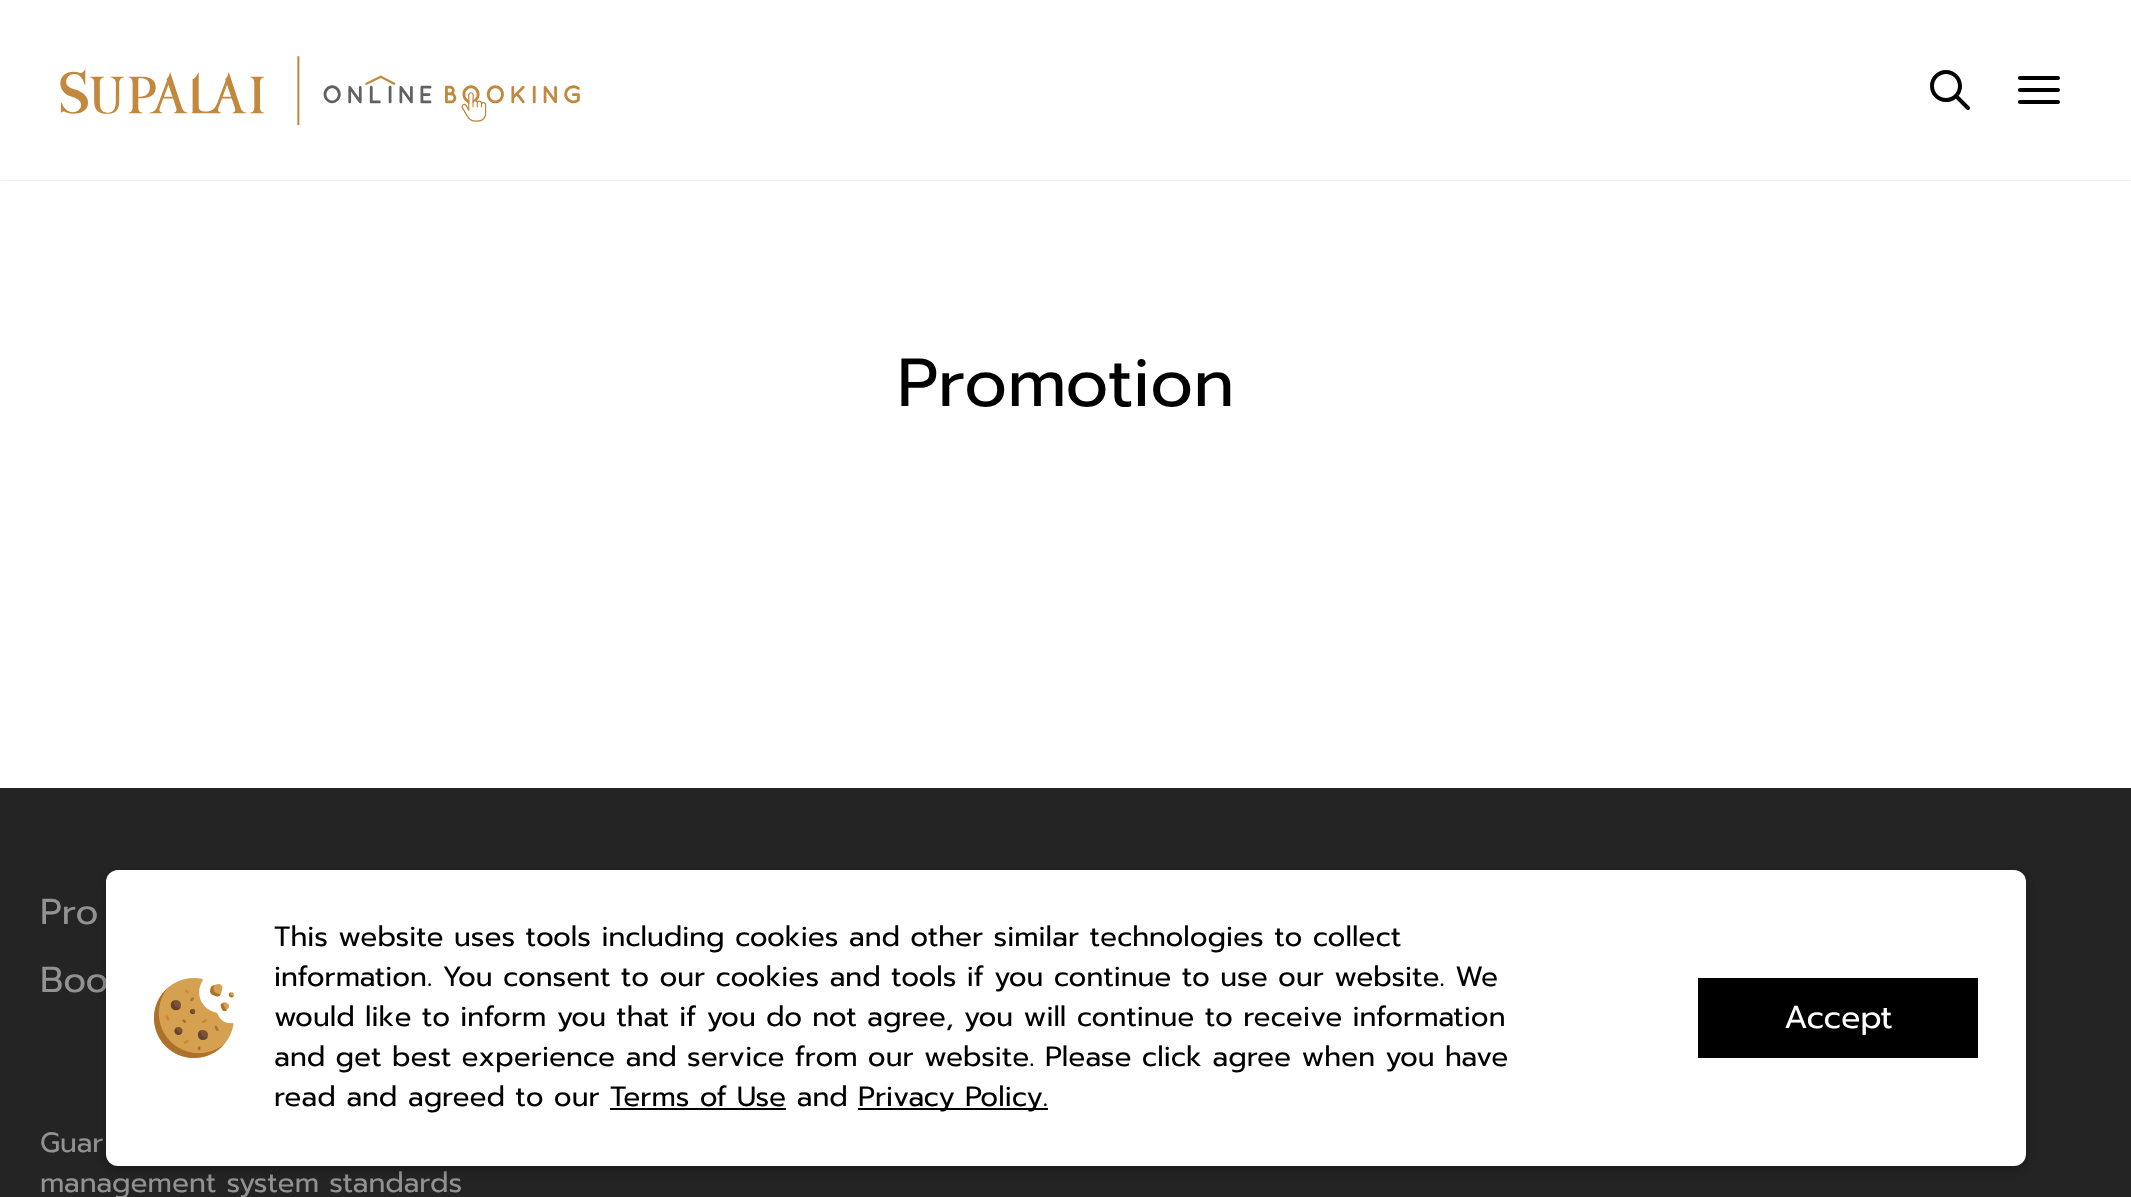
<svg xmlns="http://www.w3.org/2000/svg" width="2131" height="1197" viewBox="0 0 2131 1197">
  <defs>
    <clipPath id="clip1"><rect x="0" y="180" width="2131" height="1"/></clipPath>
    <filter id="blur1" x="-50%" y="-200%" width="200%" height="500%"><feGaussianBlur stdDeviation="1"/></filter>
    <filter id="blur2" x="-50%" y="-200%" width="200%" height="500%"><feGaussianBlur stdDeviation="6"/></filter>
  </defs>
  <rect width="100%" height="100%" fill="#ffffff"/>
  <g clip-path="url(#clip1)">
    <rect x="0" y="0" width="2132" height="180" fill="#000000" fill-opacity="0.2" filter="url(#blur1)"/>
  </g>
  <image x="60" y="56" width="520" height="70" href="img1.png"/>
  <image x="1930" y="70" width="40" height="40" href="img2.png"/>
  <image x="2018" y="76" width="42" height="28" href="img3.png"/>
  <text x="897" y="406" font-family="Prompt" font-size="68" fill="#000000">Promotion</text>
  <rect x="0" y="788" width="2131" height="409" fill="#242424"/>
  <text x="40" y="924" font-family="Prompt" font-size="36" fill="#929292">Pro</text>
  <text x="40" y="992" font-family="Prompt" font-size="36" fill="#929292">Boo</text>
  <text x="40" y="1152" font-family="Prompt" font-size="28" fill="#929292">Guar</text>
  <text x="40" y="1192" font-family="Prompt" font-size="28" fill="#929292">management system standards</text>
  <rect x="106" y="874" width="1920" height="296" rx="12" fill="#000000" fill-opacity="0.3" filter="url(#blur2)"/>
  <rect x="106" y="870" width="1920" height="296" rx="12" fill="#ffffff"/>
  <image x="154" y="978" width="80" height="80" href="img4.png"/>
  <text x="274" y="946" font-family="Prompt" font-size="28" fill="#000000">This website uses tools including cookies and other similar technologies to collect</text>
  <text x="274" y="986" font-family="Prompt" font-size="28" fill="#000000">information. You consent to our cookies and tools if you continue to use our website. We</text>
  <text x="274" y="1026" font-family="Prompt" font-size="28" fill="#000000">would like to inform you that if you do not agree, you will continue to receive information</text>
  <text x="274" y="1066" font-family="Prompt" font-size="28" fill="#000000">and get best experience and service from our website. Please click agree when you have</text>
  <text x="274" y="1106" font-family="Prompt" font-size="28" fill="#000000">read and agreed to our Terms of Use and</text>
  <rect x="858" y="1108" width="190" height="2" fill="#000000"/>
  <text x="858" y="1106" font-family="Prompt" font-size="28" fill="#000000">Privacy Policy.</text>
  <rect x="610" y="1108" width="176" height="2" fill="#000000"/>
  <rect x="1698" y="978" width="280" height="80" fill="#000000"/>
  <text x="1784" y="1028" font-family="Prompt" font-size="32" fill="#ffffff">Accept</text>
</svg>
